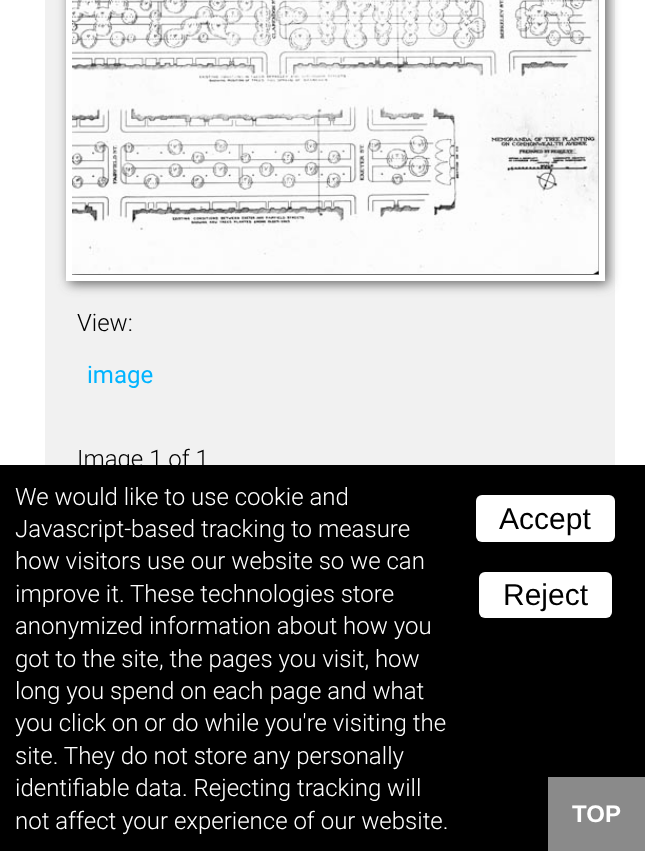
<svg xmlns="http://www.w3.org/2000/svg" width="645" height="851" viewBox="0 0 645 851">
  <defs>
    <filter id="blur1" x="-50%" y="-200%" width="200%" height="500%"><feGaussianBlur stdDeviation="6"/></filter>
  </defs>
  <rect width="100%" height="100%" fill="#ffffff"/>
  <rect x="45" y="0" width="570" height="465" fill="#f1f1f1"/>
  <rect x="69" y="-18" width="539" height="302" fill="#666666" filter="url(#blur1)"/>
  <rect x="69" y="-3" width="533" height="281" fill="none" stroke="#ffffff" stroke-width="6"/>
  <image x="72" y="0" width="527" height="274" href="img1.png"/>
  <text x="77" y="331" font-family="Roboto" font-size="24" font-weight="300" fill="#000000">View:</text>
  <text x="87" y="383" font-family="Roboto" font-size="24" fill="#00b4ff">image</text>
  <text x="77" y="467" font-family="Roboto" font-size="24" font-weight="300" fill="#000000">Image 1 of 1</text>
  <rect x="0" y="465" width="645" height="386" fill="#000000"/>
  <text x="15" y="505" font-family="Roboto" font-size="24" font-weight="300" fill="#ffffff">We would like to use cookie and</text>
  <text x="15" y="537" font-family="Roboto" font-size="24" font-weight="300" fill="#ffffff">Javascript-based tracking to measure</text>
  <text x="15" y="569" font-family="Roboto" font-size="24" font-weight="300" fill="#ffffff">how visitors use our website so we can</text>
  <text x="15" y="602" font-family="Roboto" font-size="24" font-weight="300" fill="#ffffff">improve it. These technologies store</text>
  <text x="15" y="634" font-family="Roboto" font-size="24" font-weight="300" fill="#ffffff">anonymized information about how you</text>
  <text x="15" y="667" font-family="Roboto" font-size="24" font-weight="300" fill="#ffffff">got to the site, the pages you visit, how</text>
  <text x="15" y="699" font-family="Roboto" font-size="24" font-weight="300" fill="#ffffff">long you spend on each page and what</text>
  <text x="15" y="731" font-family="Roboto" font-size="24" font-weight="300" fill="#ffffff">you click on or do while you're visiting the</text>
  <text x="15" y="764" font-family="Roboto" font-size="24" font-weight="300" fill="#ffffff">site. They do not store any personally</text>
  <text x="15" y="796" font-family="Roboto" font-size="24" font-weight="300" fill="#ffffff">identifiable data. Rejecting tracking will</text>
  <text x="15" y="829" font-family="Roboto" font-size="24" font-weight="300" fill="#ffffff">not affect your experience of our website.</text>
  <rect x="476" y="495" width="139" height="47" rx="6" fill="#ffffff"/>
  <text x="499" y="529" font-family="Liberation Sans" font-size="30" fill="#000000">Accept</text>
  <rect x="479" y="572" width="133" height="46" rx="6" fill="#ffffff"/>
  <text x="503" y="605" font-family="Liberation Sans" font-size="30" fill="#000000">Reject</text>
  <rect x="548" y="777" width="97" height="74" fill="#8a8a8a"/>
  <text x="572" y="822" font-family="Liberation Sans" font-size="24" font-weight="bold" fill="#ffffff">TOP</text>
</svg>
